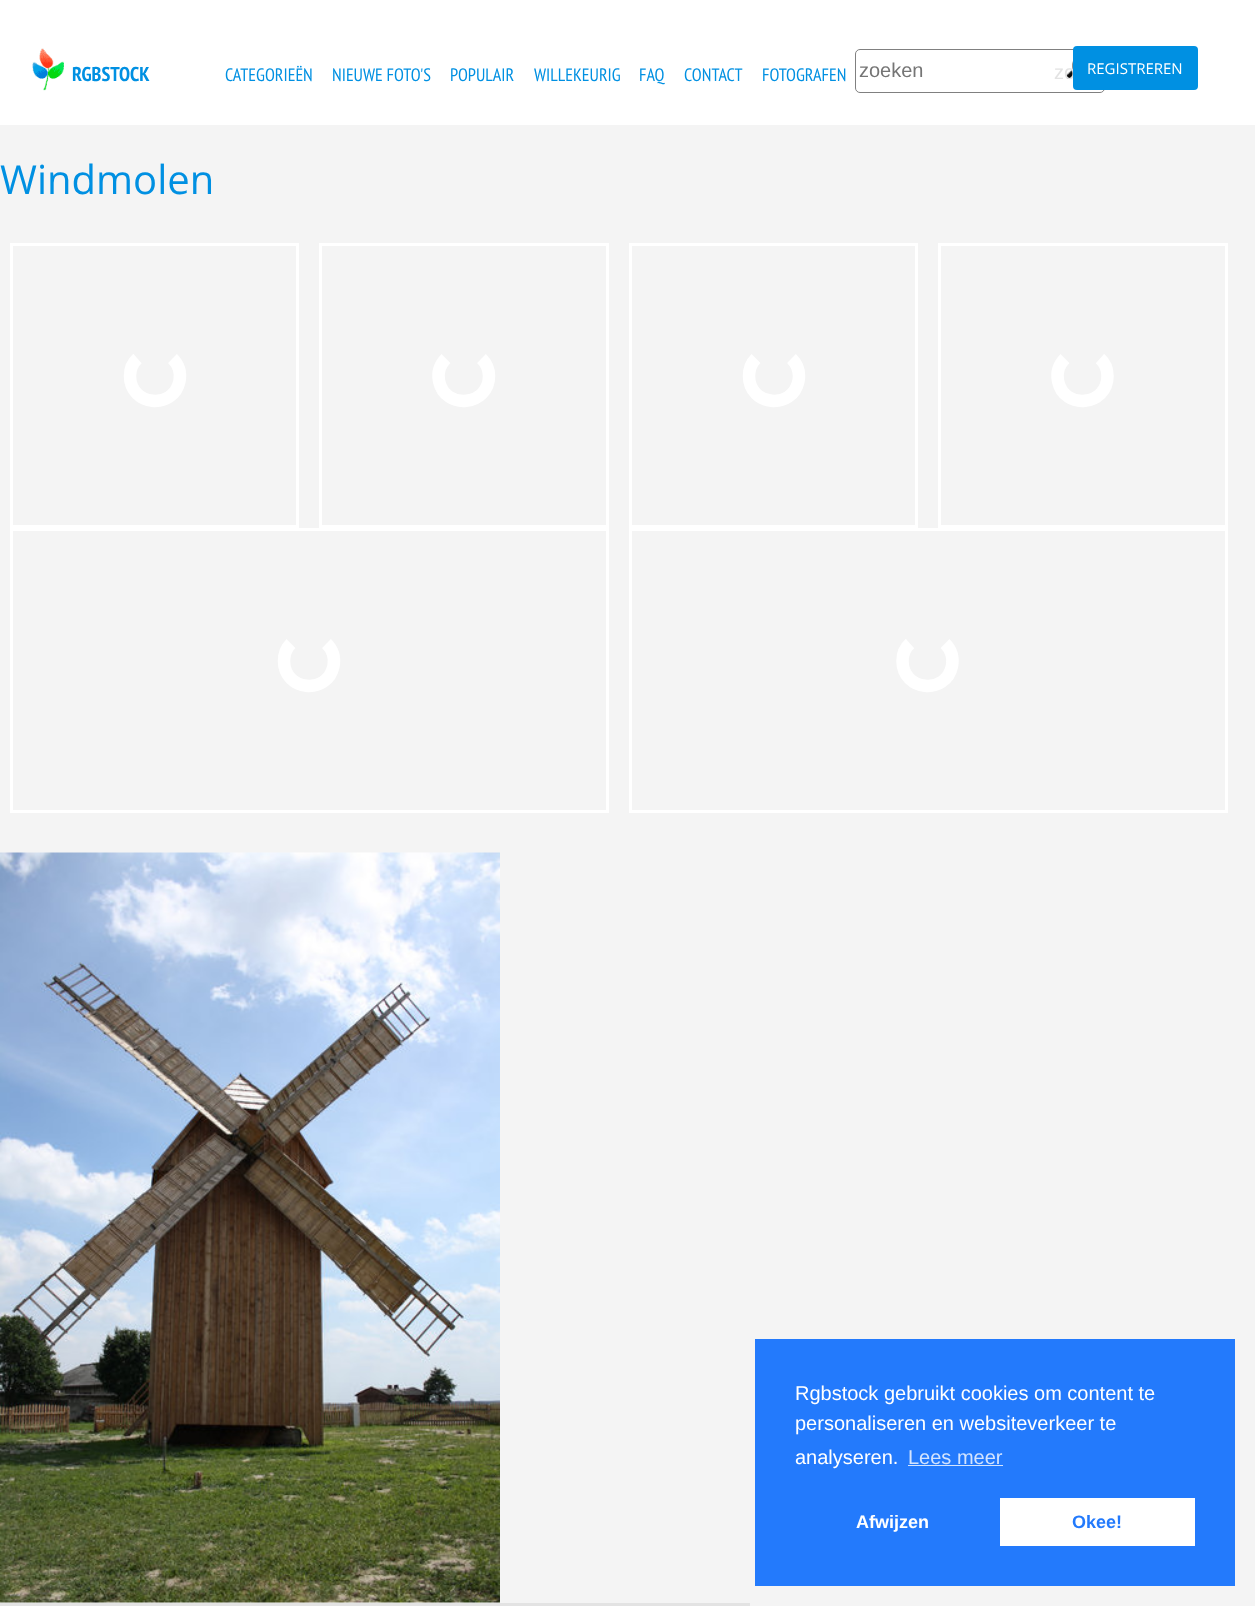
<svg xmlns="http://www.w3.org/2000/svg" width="1255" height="1606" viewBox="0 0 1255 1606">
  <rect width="100%" height="100%" fill="#f4f4f4"/>
  <rect x="0" y="0" width="1255" height="125" fill="#ffffff"/>
  <image x="32" y="48" width="32" height="43" href="img1.png"/>
  <text x="72" y="81" font-family="PT Sans Narrow" font-size="20" font-weight="bold" fill="#0090e2">RGBSTOCK</text>
  <text x="225" y="81" font-family="PT Sans Narrow" font-size="18" fill="#0090e2">CATEGORIEËN</text>
  <text x="332" y="81" font-family="PT Sans Narrow" font-size="18" fill="#0090e2">NIEUWE FOTO'S</text>
  <text x="450" y="81" font-family="PT Sans Narrow" font-size="18" fill="#0090e2">POPULAIR</text>
  <text x="534" y="81" font-family="PT Sans Narrow" font-size="18" fill="#0090e2">WILLEKEURIG</text>
  <text x="639" y="81" font-family="PT Sans Narrow" font-size="18" fill="#0090e2">FAQ</text>
  <text x="684" y="81" font-family="PT Sans Narrow" font-size="18" fill="#0090e2">CONTACT</text>
  <text x="762" y="81" font-family="PT Sans Narrow" font-size="18" fill="#0090e2">FOTOGRAFEN</text>
  <rect x="855.5" y="49.5" width="249" height="43" rx="4.5" fill="none" stroke="#808080"/>
  <text x="859" y="77" font-family="Liberation Sans" font-size="20" fill="#757575">zoeken</text>
  <image x="1066" y="61" width="7" height="18" href="img2.png"/>
  <text x="1054" y="79" font-family="Liberation Sans" font-size="20" fill="#e3e3e3">zo</text>
  <rect x="1073" y="46" width="125" height="44" rx="4" fill="#0090e2"/>
  <text x="1087" y="74" font-family="Open Sans" font-size="15" fill="#ffffff">REGISTREREN</text>
  <text x="0" y="194" font-family="Open Sans" font-size="40" fill="#0090e2">Windmolen</text>
  <rect x="11.5" y="244.5" width="286" height="282" fill="none" stroke="#ffffff" stroke-width="3"/>
  <path d="M172.5 358.5C178.5 364.5 181 373 179.5 381C173.5 410.5 130 406 130 376C130 369.5 132.5 363 137.5 358.5" fill="none" stroke="#ffffff" stroke-width="12.5"/>
  <rect x="320.5" y="244.5" width="287" height="282" fill="none" stroke="#ffffff" stroke-width="3"/>
  <path d="M481.5 358.5C486 363 489 369.5 489 376C489 406 445 410.5 439 381C437.5 373 440 364.5 446 358.5" fill="none" stroke="#ffffff" stroke-width="12.5"/>
  <rect x="630.5" y="244.5" width="286" height="282" fill="none" stroke="#ffffff" stroke-width="3"/>
  <path d="M791.5 358.5C797.5 364.5 800 373 798.5 381C792.5 410.5 749 406 749 376C749 369.5 751.5 363 756 358.5" fill="none" stroke="#ffffff" stroke-width="12.5"/>
  <rect x="939.5" y="244.5" width="287" height="282" fill="none" stroke="#ffffff" stroke-width="3"/>
  <path d="M1100 358.5C1105 363 1107.5 369.5 1107.5 376C1107.5 406 1064 410.5 1058 381C1056.5 373 1059 364.5 1065 358.5" fill="none" stroke="#ffffff" stroke-width="12.5"/>
  <rect x="11.5" y="529.5" width="596" height="282" fill="none" stroke="#ffffff" stroke-width="3"/>
  <path d="M326.5 643.5C332.5 649.5 335 658 333.5 666C327.5 695.5 284 691 284 661C284 654.5 286.5 648 291 643.5" fill="none" stroke="#ffffff" stroke-width="12.5"/>
  <rect x="630.5" y="529.5" width="596" height="282" fill="none" stroke="#ffffff" stroke-width="3"/>
  <path d="M945 643.5C951 649.5 953.5 658 952 666C946 695.5 902.5 691 902.5 661C902.5 654.5 905 648 910 643.5" fill="none" stroke="#ffffff" stroke-width="12.5"/>
  <rect x="0" y="1603" width="750" height="3" fill="#e3e3e3"/>
  <image x="0" y="852" width="500" height="751" href="img3.png"/>
  <rect x="755" y="1339" width="480" height="247" fill="#237afc"/>
  <text x="795" y="1400" font-family="Liberation Sans" font-size="20" fill="#ffffff">Rgbstock gebruikt cookies om content te</text>
  <text x="795" y="1430" font-family="Liberation Sans" font-size="20" fill="#ffffff">personaliseren en websiteverkeer te</text>
  <text x="795" y="1464" font-family="Liberation Sans" font-size="20" fill="#ffffff">analyseren.</text>
  <text x="908" y="1464" font-family="Liberation Sans" font-size="20" fill="#d3e4fe">Lees meer</text>
  <rect x="908" y="1465" width="95" height="1" fill="#d3e4fe"/>
  <text x="856" y="1528" font-family="Liberation Sans" font-size="18" font-weight="bold" fill="#ffffff">Afwijzen</text>
  <rect x="1000" y="1498" width="195" height="48" fill="#ffffff"/>
  <text x="1072" y="1528" font-family="Liberation Sans" font-size="18" font-weight="bold" fill="#237afc">Okee!</text>
</svg>
